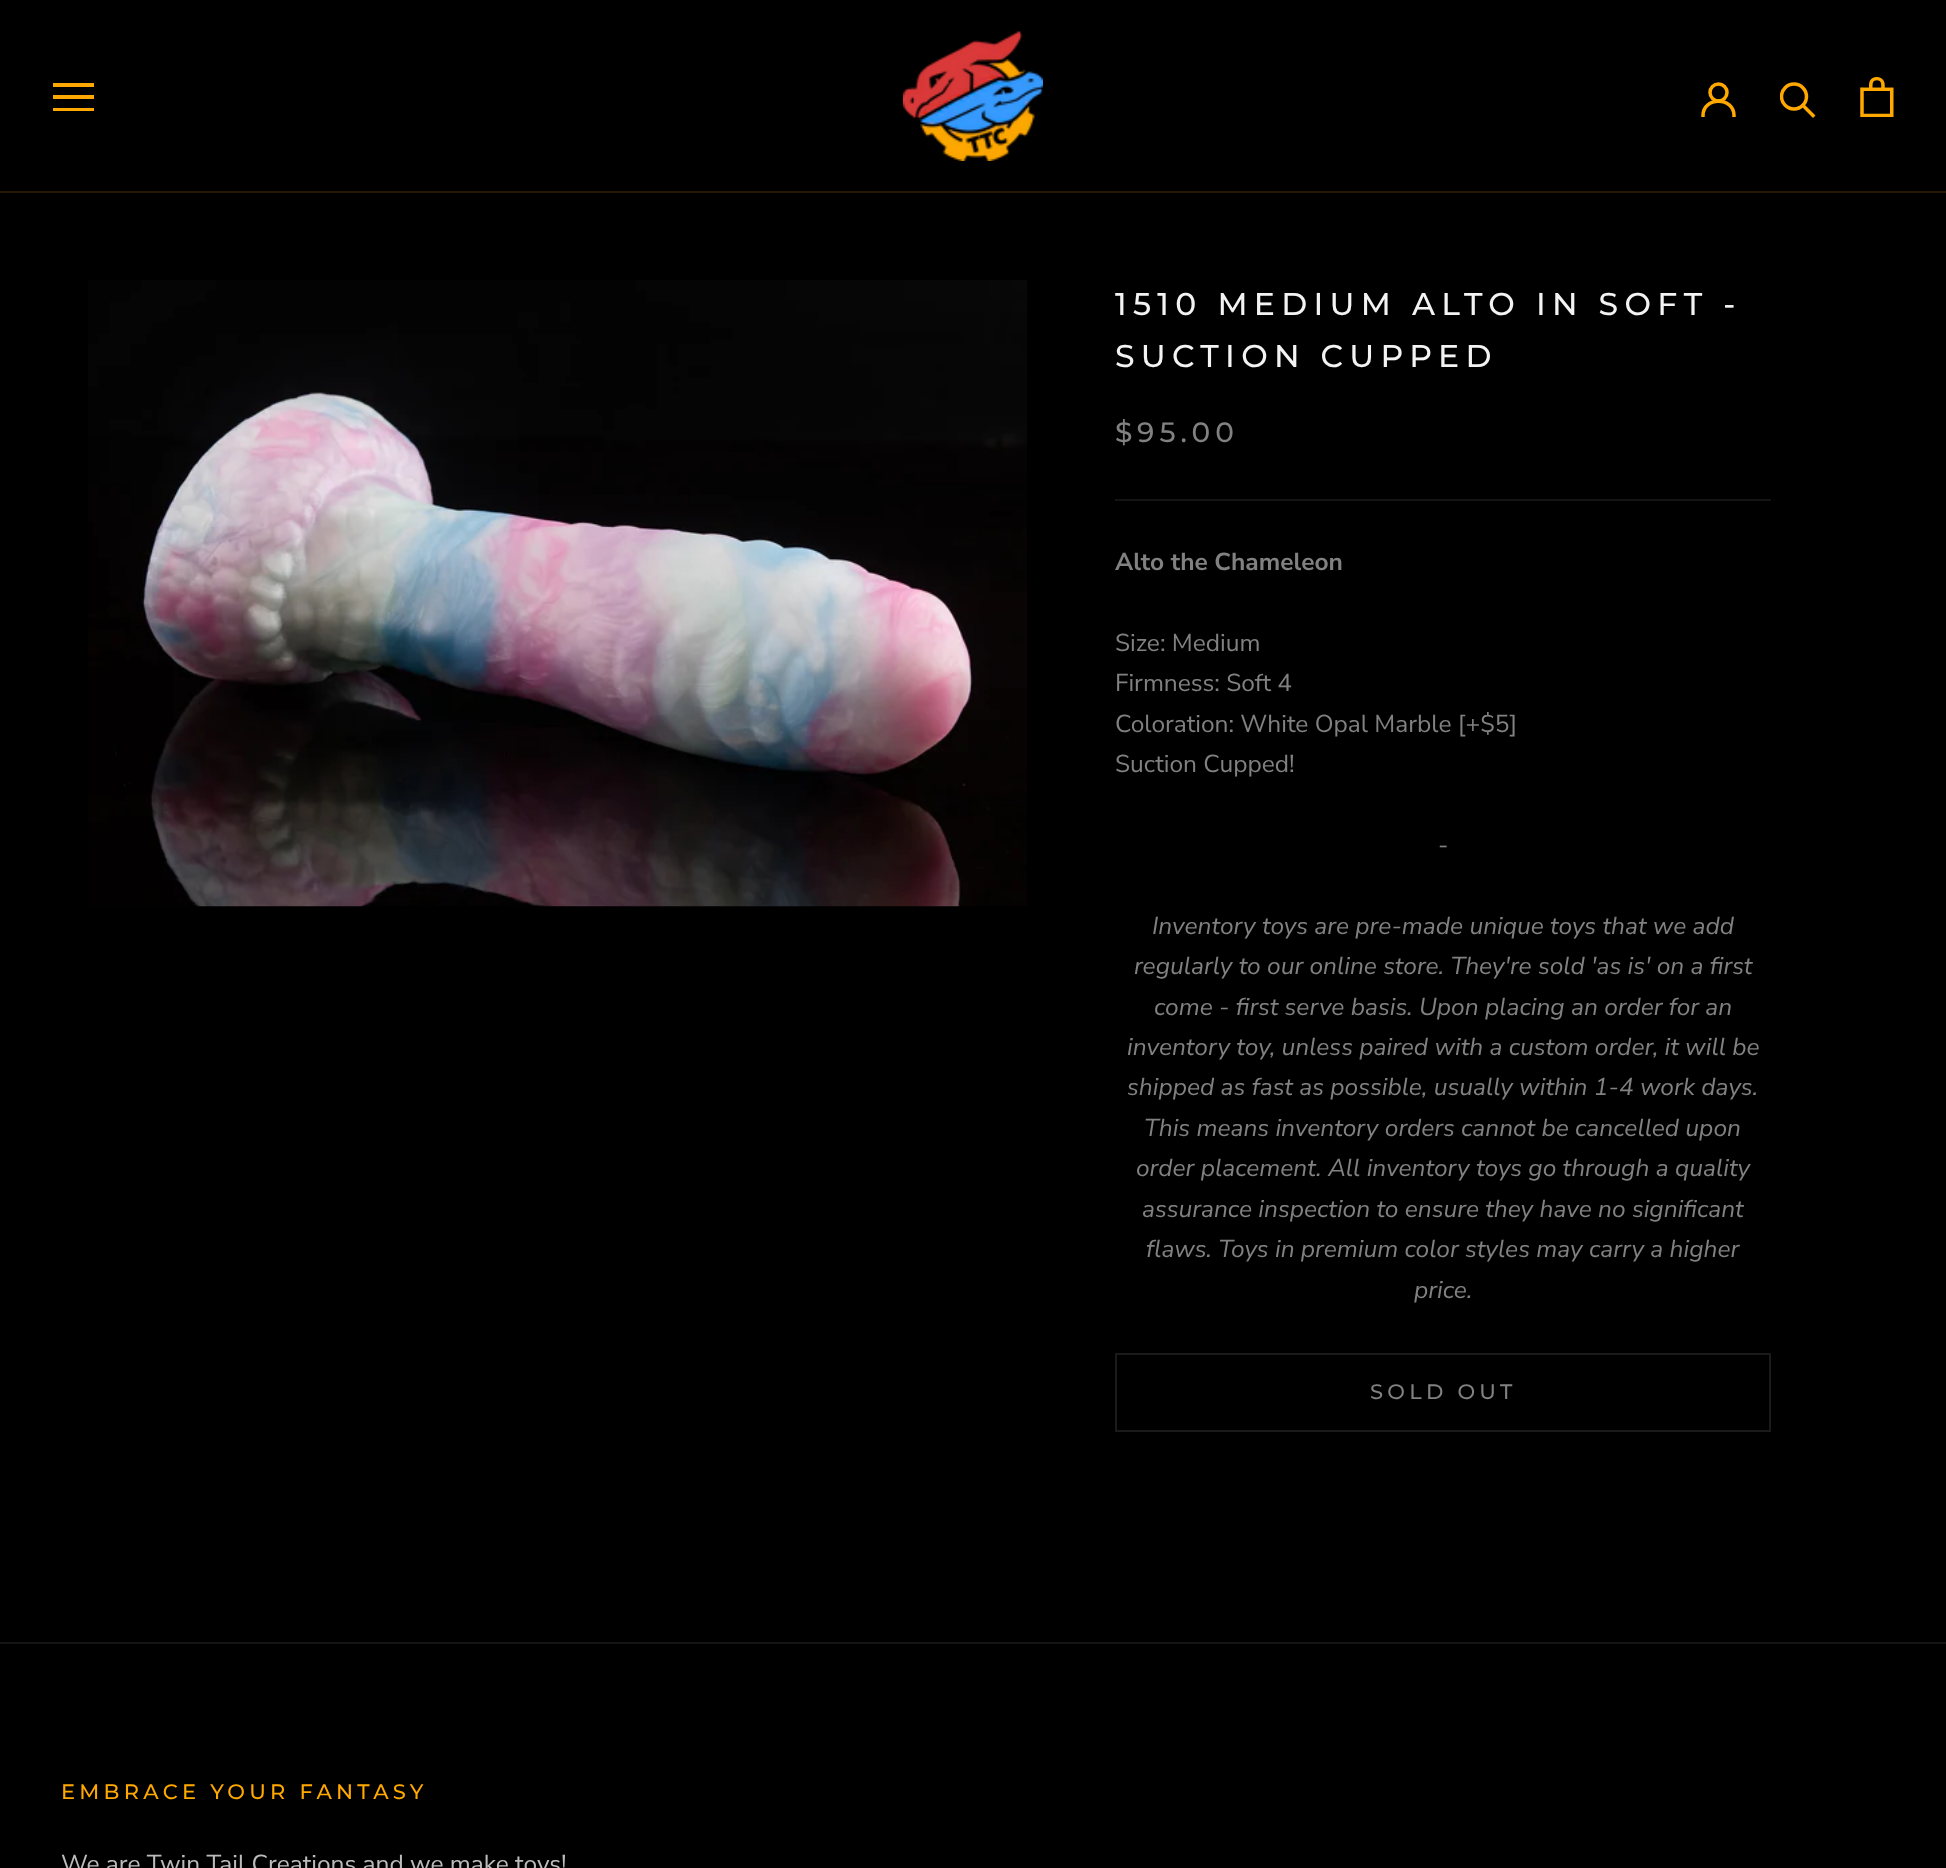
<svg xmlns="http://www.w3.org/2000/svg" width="1946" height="1868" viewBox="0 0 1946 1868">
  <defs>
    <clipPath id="clip1"><rect x="53" y="82" width="42" height="30"/></clipPath>
    <clipPath id="clip2"><rect x="1701" y="82" width="35" height="35"/></clipPath>
    <clipPath id="clip3"><rect x="1780" y="82" width="37" height="37"/></clipPath>
  </defs>
  <rect width="100%" height="100%" fill="#000000"/>
  <rect x="0" y="191" width="1946" height="2" fill="#261900"/>
  <g clip-path="url(#clip1)">
    <path d="M52 111V108H94V111ZM52 95H94V99H52ZM52 83H94V87H52Z" fill="#ffa800"/>
  </g>
  <image x="903" y="31" width="140" height="130" href="img1.png"/>
  <g clip-path="url(#clip2)">
    <path d="M1703 115.5C1703 96.5 1734 96.5 1734 115.5" fill="none" stroke="#ffa800" stroke-width="3.5" stroke-linecap="square"/>
  </g>
  <circle cx="1718.5" cy="92.5" r="8.5" fill="none" stroke="#ffa800" stroke-width="3.5"/>
  <path d="M1813 115.5L1803 105.5" fill="none" stroke="#ffa800" stroke-width="3.5" stroke-linecap="square"/>
  <g clip-path="url(#clip3)">
    <circle cx="1794" cy="96.5" r="12.5" fill="none" stroke="#ffa800" stroke-width="3.5"/>
  </g>
  <image x="1860" y="77" width="34" height="40" href="img2.png"/>
  <image x="88" y="280" width="939" height="627" href="img3.png"/>
  <rect x="1115" y="499" width="656" height="2" fill="#141414"/>
  <text x="1115" y="315" font-family="Montserrat" font-size="31.5" font-weight="500" letter-spacing="6.3" fill="#f3f3f3">1510 MEDIUM ALTO IN SOFT -</text>
  <text x="1115" y="367" font-family="Montserrat" font-size="31.5" font-weight="500" letter-spacing="6.3" fill="#f3f3f3">SUCTION CUPPED</text>
  <text x="1115" y="442" font-family="Montserrat" font-size="28" font-weight="500" letter-spacing="5" fill="#818181">$95.00</text>
  <text x="1115" y="570" font-family="Nunito Sans" font-size="24.5" font-weight="bold" fill="#818181">Alto the Chameleon</text>
  <text x="1115" y="651" font-family="Nunito Sans" font-size="24.5" fill="#818181">Size: Medium</text>
  <text x="1115" y="691" font-family="Nunito Sans" font-size="24.5" fill="#818181">Firmness: Soft 4</text>
  <text x="1115" y="732" font-family="Nunito Sans" font-size="24.5" fill="#818181">Coloration: White Opal Marble [+$5]</text>
  <text x="1115" y="772" font-family="Nunito Sans" font-size="24.5" fill="#818181">Suction Cupped!</text>
  <text x="1438" y="853" font-family="Nunito Sans" font-size="24.5" fill="#818181">-</text>
  <text x="1152" y="934" font-family="Nunito Sans" font-size="24.5" font-style="italic" fill="#818181">Inventory toys are pre-made unique toys that we add</text>
  <text x="1134" y="974" font-family="Nunito Sans" font-size="24.5" font-style="italic" fill="#818181">regularly to our online store. They're sold 'as is' on a first</text>
  <text x="1154" y="1015" font-family="Nunito Sans" font-size="24.5" font-style="italic" fill="#818181">come - first serve basis. Upon placing an order for an</text>
  <text x="1127" y="1055" font-family="Nunito Sans" font-size="24.5" font-style="italic" fill="#818181">inventory toy, unless paired with a custom order, it will be</text>
  <text x="1127" y="1095" font-family="Nunito Sans" font-size="24.5" font-style="italic" fill="#818181">shipped as fast as possible, usually within 1-4 work days.</text>
  <text x="1144" y="1136" font-family="Nunito Sans" font-size="24.5" font-style="italic" fill="#818181">This means inventory orders cannot be cancelled upon</text>
  <text x="1136" y="1176" font-family="Nunito Sans" font-size="24.5" font-style="italic" fill="#818181">order placement. All inventory toys go through a quality</text>
  <text x="1142" y="1217" font-family="Nunito Sans" font-size="24.5" font-style="italic" fill="#818181">assurance inspection to ensure they have no significant</text>
  <text x="1146" y="1257" font-family="Nunito Sans" font-size="24.5" font-style="italic" fill="#818181">flaws. Toys in premium color styles may carry a higher</text>
  <text x="1414" y="1298" font-family="Nunito Sans" font-size="24.5" font-style="italic" fill="#818181">price.</text>
  <rect x="1116" y="1354" width="654" height="77" fill="none" stroke="#1a1a1a" stroke-width="2"/>
  <text x="1370" y="1399" font-family="Montserrat" font-size="21" font-weight="500" letter-spacing="4.25" fill="#818181">SOLD OUT</text>
  <rect x="0" y="1642" width="1946" height="2" fill="#141414"/>
  <text x="61" y="1799" font-family="Montserrat" font-size="21" font-weight="500" letter-spacing="4.25" fill="#ffa800">EMBRACE YOUR FANTASY</text>
  <text x="61" y="1872" font-family="Nunito Sans" font-size="24.5" fill="#bbbbbb">We are Twin Tail Creations and we make toys!</text>
</svg>
